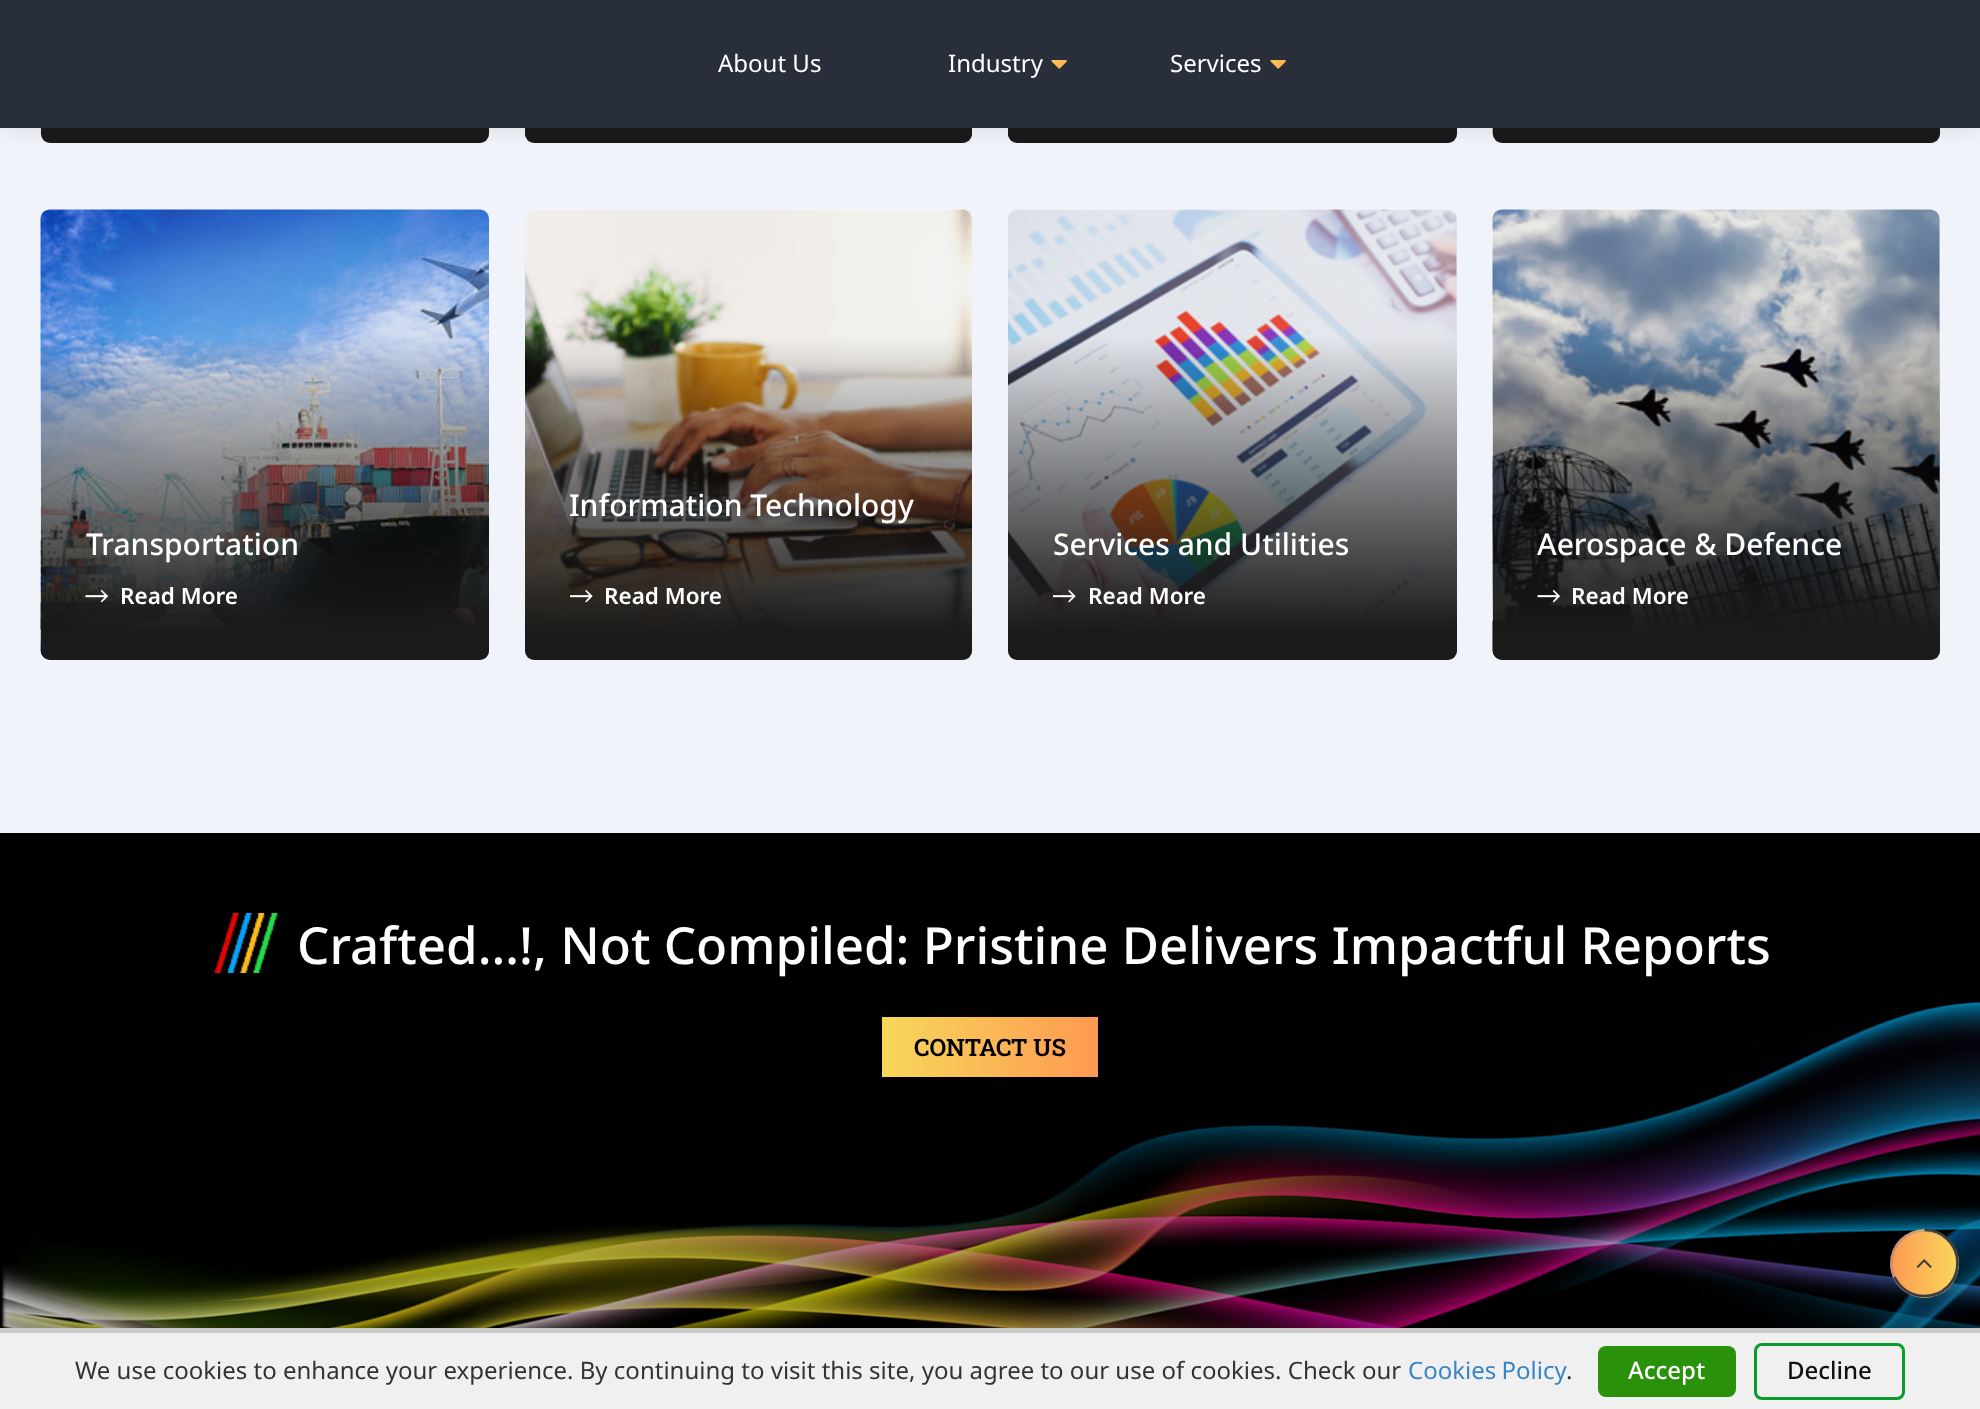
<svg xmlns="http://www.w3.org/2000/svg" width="1980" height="1409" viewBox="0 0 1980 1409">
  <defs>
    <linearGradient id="g1" gradientUnits="userSpaceOnUse" x1="265" y1="143" x2="265" y2="-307"><stop offset="0.06" stop-color="#1a1a1a"/><stop offset="0.72" stop-color="#000000" stop-opacity="0.05"/></linearGradient>
    <linearGradient id="g2" gradientUnits="userSpaceOnUse" x1="749" y1="143" x2="749" y2="-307"><stop offset="0.06" stop-color="#1a1a1a"/><stop offset="0.72" stop-color="#000000" stop-opacity="0.05"/></linearGradient>
    <linearGradient id="g3" gradientUnits="userSpaceOnUse" x1="1232" y1="143" x2="1232" y2="-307"><stop offset="0.06" stop-color="#1a1a1a"/><stop offset="0.72" stop-color="#000000" stop-opacity="0.05"/></linearGradient>
    <linearGradient id="g4" gradientUnits="userSpaceOnUse" x1="1716" y1="143" x2="1716" y2="-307"><stop offset="0.06" stop-color="#1a1a1a"/><stop offset="0.72" stop-color="#000000" stop-opacity="0.05"/></linearGradient>
    <filter id="blur1" x="-50%" y="-200%" width="200%" height="500%"><feGaussianBlur stdDeviation="11"/></filter>
    <linearGradient id="g5" gradientUnits="userSpaceOnUse" x1="265" y1="660" x2="265" y2="210"><stop offset="0.06" stop-color="#1a1a1a"/><stop offset="0.72" stop-color="#000000" stop-opacity="0.05"/></linearGradient>
    <linearGradient id="g6" gradientUnits="userSpaceOnUse" x1="749" y1="660" x2="749" y2="210"><stop offset="0.06" stop-color="#1a1a1a"/><stop offset="0.72" stop-color="#000000" stop-opacity="0.05"/></linearGradient>
    <linearGradient id="g7" gradientUnits="userSpaceOnUse" x1="1232" y1="660" x2="1232" y2="210"><stop offset="0.06" stop-color="#1a1a1a"/><stop offset="0.72" stop-color="#000000" stop-opacity="0.05"/></linearGradient>
    <linearGradient id="g8" gradientUnits="userSpaceOnUse" x1="1716" y1="660" x2="1716" y2="210"><stop offset="0.06" stop-color="#1a1a1a"/><stop offset="0.72" stop-color="#000000" stop-opacity="0.05"/></linearGradient>
    <linearGradient id="g9" gradientUnits="userSpaceOnUse" x1="882" y1="1047" x2="1098" y2="1047"><stop offset="0" stop-color="#f7d85b"/><stop offset="1" stop-color="#fe9951"/></linearGradient>
    <linearGradient id="g10" gradientUnits="userSpaceOnUse" x1="1890" y1="1263" x2="1959" y2="1263"><stop offset="0" stop-color="#fe9951"/><stop offset="1" stop-color="#f7d85b"/></linearGradient>
    <clipPath id="clip1"><rect x="1890" y="1229" width="69" height="69"/></clipPath>
    <filter id="blur2" x="-50%" y="-200%" width="200%" height="500%"><feGaussianBlur stdDeviation="7.5"/></filter>
  </defs>
  <rect width="100%" height="100%" fill="#f0f3f9"/>
  <image x="40" y="128" width="449" height="14" href="img3.png"/>
  <rect x="41" y="-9" width="448" height="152" rx="9" fill="url(#g1)"/>
  <image x="525" y="134" width="447" height="6" href="img4.png"/>
  <rect x="525" y="-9" width="447" height="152" rx="9" fill="url(#g2)"/>
  <image x="1008" y="134" width="449" height="6" href="img5.png"/>
  <rect x="1008" y="-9" width="449" height="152" rx="9" fill="url(#g3)"/>
  <image x="1492" y="128" width="448" height="14" href="img6.png"/>
  <rect x="1493" y="-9" width="447" height="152" rx="9" fill="url(#g4)"/>
  <rect x="0" y="0" width="1980" height="128" fill="#000000" fill-opacity="0.1" filter="url(#blur1)"/>
  <rect x="0" y="0" width="1980" height="128" fill="#282f3b"/>
  <text x="718" y="72" font-family="Noto Sans" font-size="24" fill="#ffffff">About Us</text>
  <text x="948" y="72" font-family="Noto Sans" font-size="24" fill="#ffffff">Industry</text>
  <image x="1051" y="60" width="16" height="9" href="img1.png"/>
  <text x="1170" y="72" font-family="Noto Sans" font-size="24" fill="#ffffff">Services</text>
  <image x="1270" y="60" width="16" height="9" href="img2.png"/>
  <image x="40" y="209" width="449" height="451" href="img7.png"/>
  <rect x="41" y="210" width="448" height="450" rx="9" fill="url(#g5)"/>
  <text x="86" y="555" font-family="Noto Sans" font-size="30" font-weight="500" fill="#ffffff">Transportation</text>
  <image x="85" y="589" width="24" height="14" href="img8.png"/>
  <text x="120" y="604" font-family="Noto Sans" font-size="22.5" font-weight="600" fill="#ffffff">Read More</text>
  <image x="525" y="209" width="447" height="451" href="img9.png"/>
  <rect x="525" y="210" width="447" height="450" rx="9" fill="url(#g6)"/>
  <text x="569" y="516" font-family="Noto Sans" font-size="30" font-weight="500" fill="#ffffff">Information Technology</text>
  <image x="570" y="589" width="23" height="14" href="img10.png"/>
  <text x="604" y="604" font-family="Noto Sans" font-size="22.5" font-weight="600" fill="#ffffff">Read More</text>
  <image x="1008" y="209" width="449" height="451" href="img11.png"/>
  <rect x="1008" y="210" width="449" height="450" rx="9" fill="url(#g7)"/>
  <text x="1053" y="555" font-family="Noto Sans" font-size="30" font-weight="500" fill="#ffffff">Services and Utilities</text>
  <image x="1053" y="589" width="23" height="14" href="img12.png"/>
  <text x="1088" y="604" font-family="Noto Sans" font-size="22.5" font-weight="600" fill="#ffffff">Read More</text>
  <image x="1492" y="209" width="448" height="451" href="img13.png"/>
  <rect x="1493" y="210" width="447" height="450" rx="9" fill="url(#g8)"/>
  <text x="1537" y="555" font-family="Noto Sans" font-size="30" font-weight="500" fill="#ffffff">Aerospace &amp; Defence</text>
  <image x="1537" y="589" width="24" height="14" href="img14.png"/>
  <text x="1571" y="604" font-family="Noto Sans" font-size="22.5" font-weight="600" fill="#ffffff">Read More</text>
  <rect x="0" y="833" width="1980" height="495" fill="#000000"/>
  <image x="214" y="913" width="64" height="60" href="img15.png"/>
  <text x="297" y="964" font-family="Noto Sans" font-size="51" font-weight="500" fill="#ffffff">Crafted…!, Not Compiled: Pristine Delivers Impactful Reports</text>
  <image x="0" y="1002" width="1980" height="326" href="img16.png"/>
  <rect x="882" y="1017" width="216" height="60" fill="url(#g9)"/>
  <text x="914" y="1056" font-family="Roboto Slab" font-size="24" font-weight="600" fill="#000000">CONTACT US</text>
  <circle cx="1924.5" cy="1263.5" r="34.5" fill="url(#g10)"/>
  <circle cx="1924.5" cy="1263.5" r="33" fill="none" stroke="#165df5" stroke-opacity="0.2" stroke-width="3"/>
  <g clip-path="url(#clip1)">
    <path d="M1924.5 1230C1943 1230 1957.5 1244.5 1957.5 1263C1957.5 1281.5 1943 1296 1924.5 1296C1911 1296 1900 1288.5 1894.5 1277" fill="none" stroke="#3d3d3d" stroke-width="2.7"/>
  </g>
  <image x="1916" y="1259" width="16" height="9" href="img17.png"/>
  <rect x="0" y="1325" width="1980" height="82" fill="#000000" fill-opacity="0.1" filter="url(#blur2)"/>
  <rect x="0" y="1333" width="1980" height="76" fill="#f0f0f0"/>
  <rect x="0" y="1328" width="1980" height="5" fill="#c9c9c9"/>
  <text x="75" y="1379" font-family="Noto Sans" font-size="24" fill="#333333">We use cookies to enhance your experience. By continuing to visit this site, you agree to our use of cookies. Check our</text>
  <text x="1408" y="1379" word-spacing="-1" font-family="Noto Sans" font-size="24" fill="#3884c4">Cookies Policy</text>
  <text x="1566" y="1379" font-family="Noto Sans" font-size="24" fill="#333333">.</text>
  <rect x="1598" y="1346" width="138" height="51" rx="8" fill="#2a910b"/>
  <text x="1628" y="1379" font-family="Noto Sans" font-size="24" font-weight="500" fill="#ffffff">Accept</text>
  <rect x="1755.5" y="1344.5" width="148" height="54" rx="6.5" fill="none" stroke="#099c2c" stroke-width="3"/>
  <text x="1787" y="1379" font-family="Noto Sans" font-size="24" font-weight="500" fill="#111211">Decline</text>
</svg>
